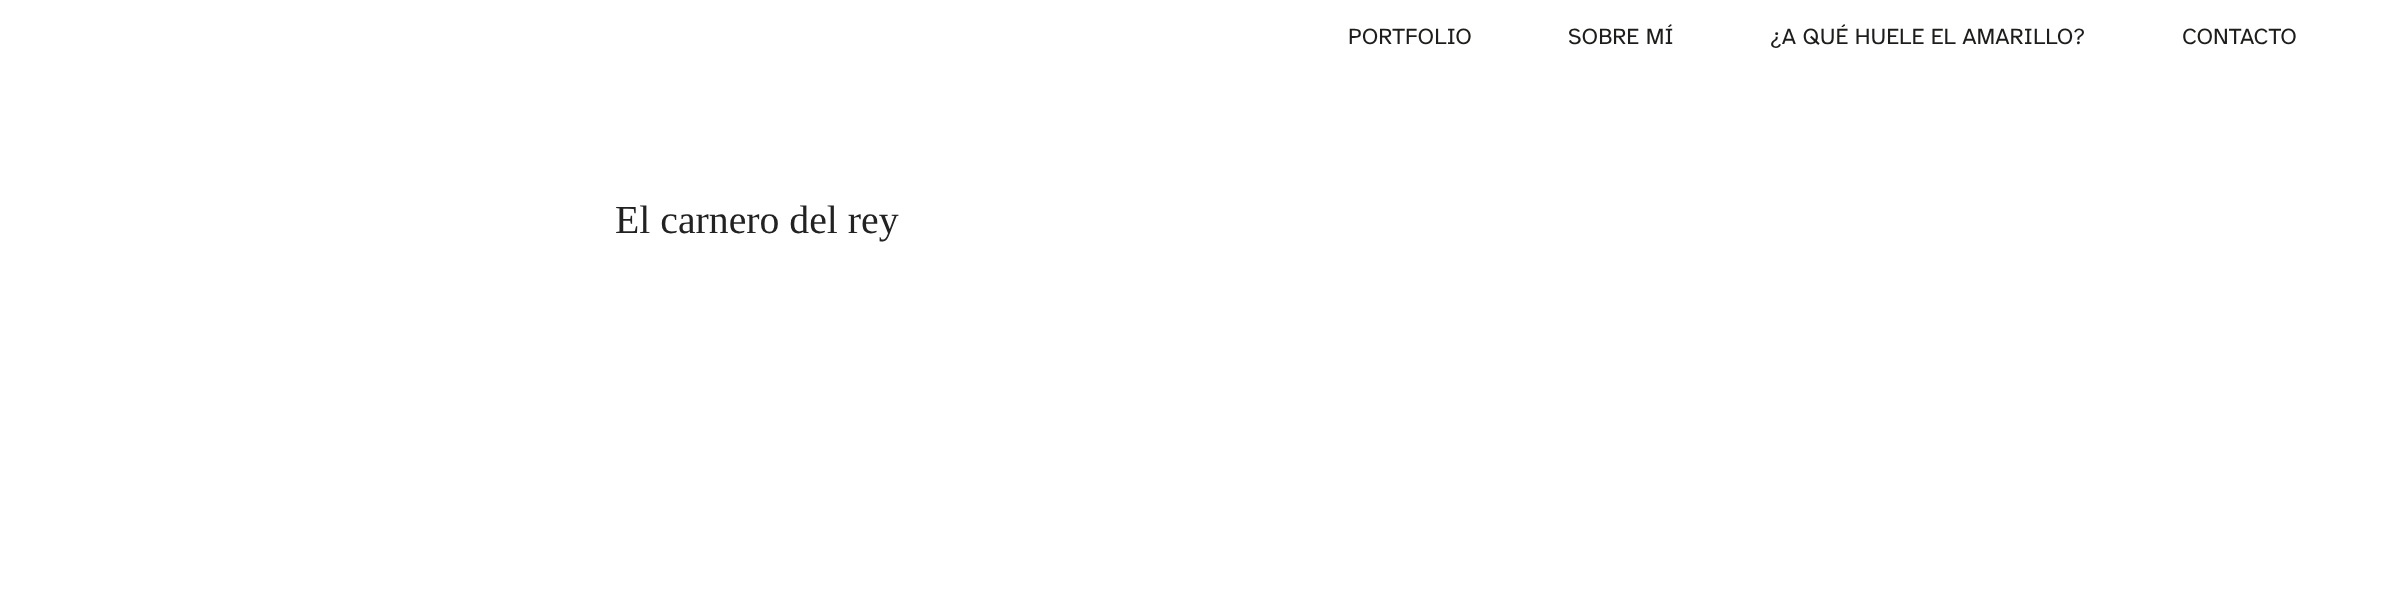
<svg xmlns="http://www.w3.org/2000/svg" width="2405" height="603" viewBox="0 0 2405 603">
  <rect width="100%" height="100%" fill="#ffffff"/>
  <text x="1348" y="44" font-family="Atkinson Hyperlegible" font-size="22.8" fill="#1d1d1b">PORTFOLIO</text>
  <text x="1568" y="44" font-family="Atkinson Hyperlegible" font-size="22.8" fill="#1d1d1b">SOBRE MÍ</text>
  <text x="1770" y="44" font-family="Atkinson Hyperlegible" font-size="22.8" fill="#1d1d1b">¿A QUÉ HUELE EL AMARILLO?</text>
  <text x="2182" y="44" font-family="Atkinson Hyperlegible" font-size="22.8" fill="#1d1d1b">CONTACTO</text>
  <text x="615" y="233" font-family="Liberation Serif" font-size="39.75" fill="#222222">El carnero del rey</text>
</svg>
